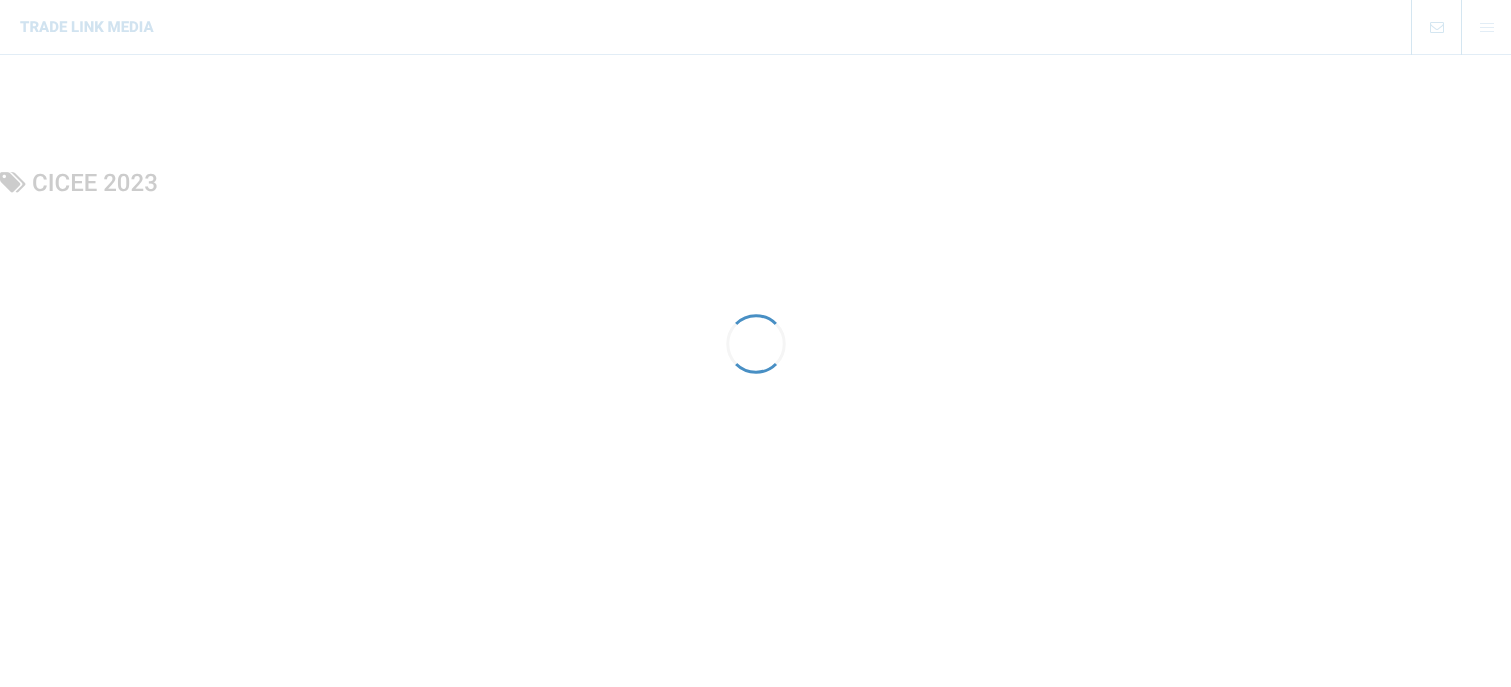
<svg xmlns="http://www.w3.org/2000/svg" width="1511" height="687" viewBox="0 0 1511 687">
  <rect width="100%" height="100%" fill="#ffffff"/>
  <rect x="0" y="54" width="1511" height="1" fill="#e2edf6"/>
  <text x="20" y="32" font-family="Roboto" font-size="15" font-weight="800" fill="#d1e3f0">TRADE LINK MEDIA</text>
  <rect x="1411" y="0" width="1" height="55" fill="#d4e6f1"/>
  <image x="1430" y="22" width="14" height="11" href="img1.png"/>
  <rect x="1461" y="0" width="1" height="55" fill="#d4e6f1"/>
  <rect x="1480" y="23" width="14" height="1" fill="#e2edf6"/>
  <rect x="1480" y="27" width="14" height="1" fill="#e2edf6"/>
  <rect x="1480" y="31" width="14" height="1" fill="#e2edf6"/>
  <image x="0" y="172" width="26" height="21" href="img2.png"/>
  <text x="32" y="191" font-family="Roboto" font-size="24" font-weight="500" fill="#cccccc">CICEE 2023</text>
  <path d="M736 324C747 313 765 313 776 324" fill="none" stroke="#488fc4" stroke-width="3"/>
  <path d="M776 324C787 335 787 353 776 364" fill="none" stroke="#f5f5f5" stroke-width="3"/>
  <path d="M776 364C765 375 747 375 736 364" fill="none" stroke="#488fc4" stroke-width="3"/>
  <path d="M736 364C725 353 725 335 736 324" fill="none" stroke="#f5f5f5" stroke-width="3"/>
</svg>
